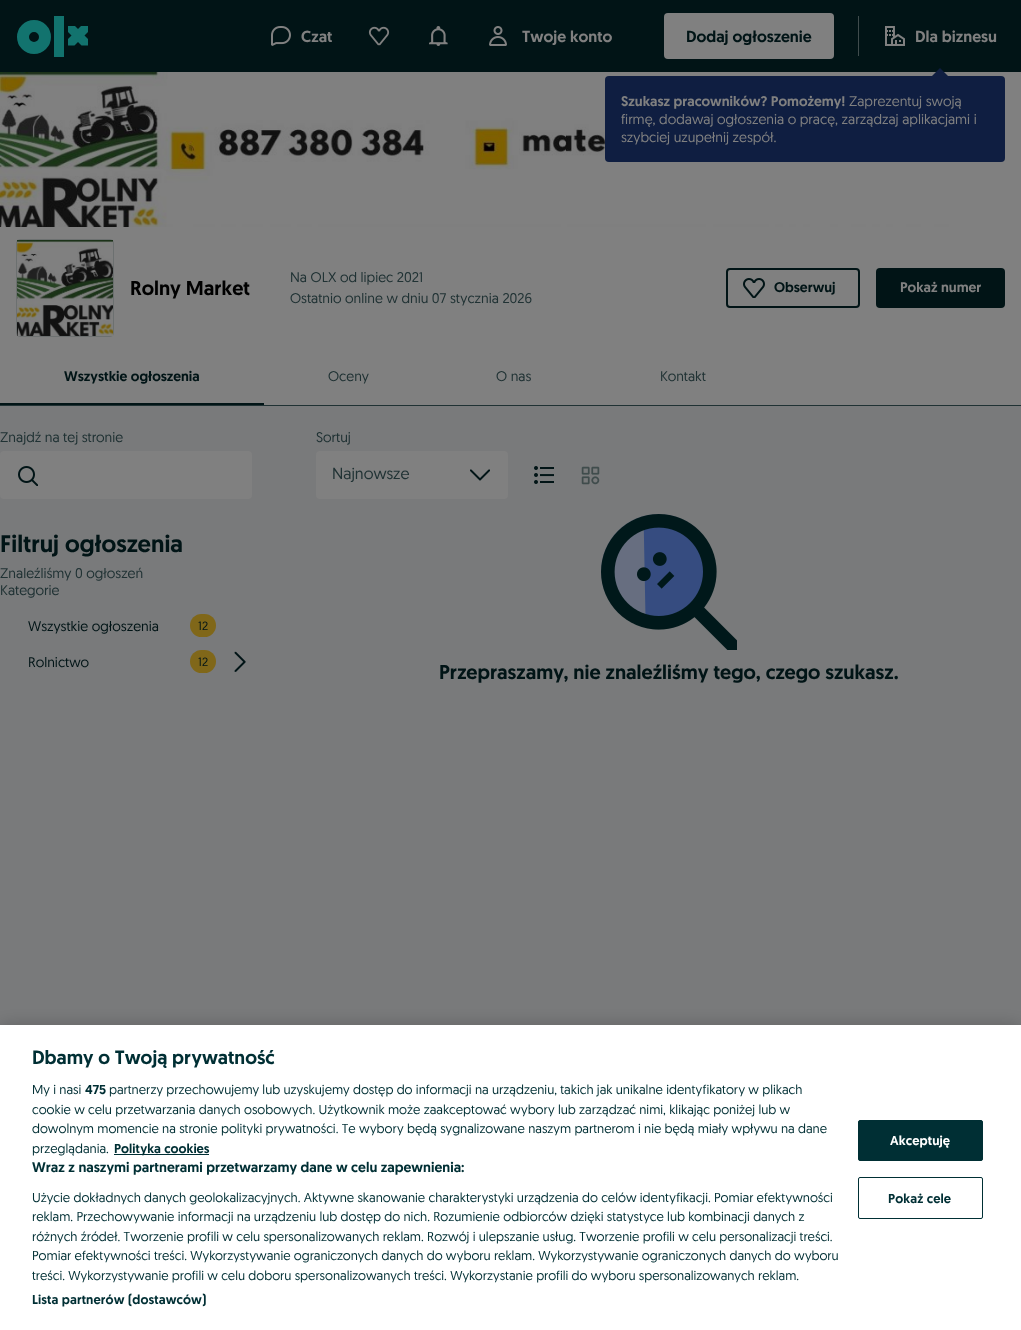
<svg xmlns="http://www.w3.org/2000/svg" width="1021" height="1330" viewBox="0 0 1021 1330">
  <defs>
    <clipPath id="clip1"><rect x="68" y="26" width="20" height="20"/></clipPath>
    <filter id="blur1" x="-50%" y="-200%" width="200%" height="500%"><feGaussianBlur stdDeviation="9"/></filter>
  </defs>
  <rect width="100%" height="100%" fill="#797a7b"/>
  <rect x="0" y="0" width="1021" height="72" fill="#011416"/>
  <circle cx="34" cy="37" r="11" fill="none" stroke="#12736e" stroke-width="12"/>
  <rect x="54" y="16" width="10" height="41" fill="#12736e"/>
  <g clip-path="url(#clip1)">
    <path d="M61.5 25.5H74.5L94.5 45.5H81.5Z" fill="#12736e"/>
    <path d="M81.5 25.5H94.5L74.5 45.5H61.5Z" fill="#12736e"/>
  </g>
  <image x="271" y="26" width="20" height="20" href="img1.png"/>
  <text x="301" y="42" font-family="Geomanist" font-size="16" font-weight="500" fill="#808080">Czat</text>
  <image x="368" y="26" width="22" height="20" href="img2.png"/>
  <image x="429" y="26" width="19" height="20" href="img3.png"/>
  <image x="489" y="26" width="18" height="20" href="img4.png"/>
  <text x="522" y="42" font-family="Geomanist" font-size="16" font-weight="500" fill="#808080">Twoje konto</text>
  <rect x="858" y="16" width="1" height="40" fill="#404c4d"/>
  <image x="885" y="26" width="20" height="20" href="img5.png"/>
  <text x="915" y="42" font-family="Geomanist" font-size="16" font-weight="500" fill="#808080">Dla biznesu</text>
  <rect x="0" y="72" width="1021" height="333" fill="#808080"/>
  <image x="0" y="72" width="949" height="155" href="img6.png"/>
  <rect x="605" y="76" width="400" height="86" rx="4" fill="#0f1e41"/>
  <path d="M948 76H932L940 68Z" fill="#0f1e41"/>
  <text x="621" y="106" font-family="Geomanist" font-size="14" font-weight="500" fill="#808080">Szukasz pracowników? Pomożemy!</text>
  <text x="849" y="106" font-family="Geomanist" font-size="14" fill="#808080">Zaprezentuj swoją</text>
  <text x="621" y="124" font-family="Geomanist" font-size="14" fill="#808080">firmę, dodawaj ogłoszenia o pracę, zarządzaj aplikacjami i</text>
  <text x="621" y="142" font-family="Geomanist" font-size="14" fill="#808080">szybciej uzupełnij zespół.</text>
  <rect x="664" y="13" width="170" height="46" rx="4" fill="#808080"/>
  <text x="686" y="42" font-family="Geomanist" font-size="16" font-weight="500" fill="#011416">Dodaj ogłoszenie</text>
  <rect x="16.5" y="239.5" width="97" height="97" rx="3.5" fill="none" stroke="#6c7070"/>
  <image x="17" y="240" width="96" height="96" href="img7.png"/>
  <text x="130" y="295" font-family="Geomanist" font-size="20" font-weight="500" fill="#000000">Rolny Market</text>
  <text x="290" y="282" font-family="Geomanist" font-size="14" fill="#203234">Na OLX od lipiec 2021</text>
  <text x="290" y="303" font-family="Geomanist" font-size="14" fill="#203234">Ostatnio online w dniu 07 stycznia 2026</text>
  <rect x="727" y="269" width="132" height="38" rx="3" fill="none" stroke="#011416" stroke-width="2"/>
  <image x="743" y="278" width="22" height="20" href="img8.png"/>
  <text x="774" y="292" font-family="Geomanist" font-size="14" font-weight="500" fill="#011416">Obserwuj</text>
  <rect x="876" y="268" width="129" height="40" rx="4" fill="#011416"/>
  <text x="900" y="292" font-family="Geomanist" font-size="14" font-weight="500" fill="#808080">Pokaż numer</text>
  <rect x="0" y="405" width="1021" height="1" fill="#203234"/>
  <rect x="0" y="403" width="264" height="2" fill="#011416"/>
  <text x="64" y="381" font-family="Geomanist" font-size="14" font-weight="500" fill="#011416">Wszystkie ogłoszenia</text>
  <text x="328" y="381" font-family="Geomanist" font-size="14" fill="#203234">Oceny</text>
  <text x="496" y="381" font-family="Geomanist" font-size="14" fill="#203234">O nas</text>
  <text x="660" y="381" font-family="Geomanist" font-size="14" fill="#203234">Kontakt</text>
  <text x="0" y="442" font-family="Geomanist" font-size="14" fill="#203234">Znajdź na tej stronie</text>
  <rect x="0" y="451" width="252" height="48" rx="4" fill="#808080"/>
  <image x="18" y="466" width="20" height="20" href="img9.png"/>
  <text x="0" y="552" font-family="Geomanist" font-size="24" font-weight="500" fill="#011416">Filtruj ogłoszenia</text>
  <text x="0" y="578" font-family="Geomanist" font-size="14" fill="#203234">Znaleźliśmy 0 ogłoszeń</text>
  <text x="0" y="595" font-family="Geomanist" font-size="14" fill="#203234">Kategorie</text>
  <text x="28" y="631" font-family="Geomanist" font-size="14" fill="#011416">Wszystkie ogłoszenia</text>
  <rect x="190" y="614" width="26" height="23" rx="11.5" fill="#806719"/>
  <text x="198" y="630" font-family="Geomanist" font-size="12" fill="#011416">12</text>
  <text x="28" y="667" font-family="Geomanist" font-size="14" fill="#011416">Rolnictwo</text>
  <rect x="190" y="650" width="26" height="23" rx="11.5" fill="#806719"/>
  <text x="198" y="666" font-family="Geomanist" font-size="12" fill="#011416">12</text>
  <image x="234" y="651" width="12" height="21" href="img10.png"/>
  <text x="316" y="442" font-family="Geomanist" font-size="14" fill="#203234">Sortuj</text>
  <rect x="316" y="451" width="192" height="48" rx="4" fill="#808080"/>
  <text x="332" y="479" font-family="Geomanist" font-size="16" fill="#203234">Najnowsze</text>
  <image x="470" y="469" width="20" height="12" href="img11.png"/>
  <image x="534" y="466" width="20" height="18" href="img12.png"/>
  <image x="581" y="466" width="19" height="19" href="img13.png"/>
  <image x="601" y="514" width="136" height="136" href="img14.png"/>
  <text x="439" y="679" font-family="Geomanist" font-size="20" font-weight="500" fill="#011416">Przepraszamy, nie znaleźliśmy tego, czego szukasz.</text>
  <rect x="0" y="1025" width="1021" height="305" fill="#000000" fill-opacity="0.2" filter="url(#blur1)"/>
  <rect x="0" y="1025" width="1021" height="305" fill="#ffffff"/>
  <text x="32" y="1064" font-family="Geomanist" font-size="19.25" font-weight="500" fill="#002f34">Dbamy o Twoją prywatność</text>
  <text x="32" y="1094" font-family="Geomanist" font-size="13" fill="#002f34">My i nasi</text>
  <text x="85" y="1094" font-family="Geomanist" font-size="13" font-weight="500" fill="#002f34">475</text>
  <text x="109" y="1094" font-family="Geomanist" font-size="13" fill="#002f34">partnerzy przechowujemy lub uzyskujemy dostęp do informacji na urządzeniu, takich jak unikalne identyfikatory w plikach</text>
  <text x="32" y="1114" font-family="Geomanist" font-size="13" fill="#002f34">cookie w celu przetwarzania danych osobowych. Użytkownik może zaakceptować wybory lub zarządzać nimi, klikając poniżej lub w</text>
  <text x="32" y="1133" font-family="Geomanist" font-size="13" fill="#002f34">dowolnym momencie na stronie polityki prywatności. Te wybory będą sygnalizowane naszym partnerom i nie będą miały wpływu na dane</text>
  <text x="32" y="1153" font-family="Geomanist" font-size="13" fill="#002f34">przeglądania.</text>
  <rect x="114" y="1154" width="95" height="1" fill="#002f34"/>
  <text x="114" y="1153" font-family="Geomanist" font-size="13" font-weight="500" fill="#002f34">Polityka cookies</text>
  <text x="32" y="1172" font-family="Geomanist" font-size="14.1" font-weight="500" fill="#002f34">Wraz z naszymi partnerami przetwarzamy dane w celu zapewnienia:</text>
  <text x="32" y="1202" font-family="Geomanist" font-size="13" fill="#002f34">Użycie dokładnych danych geolokalizacyjnych. Aktywne skanowanie charakterystyki urządzenia do celów identyfikacji. Pomiar efektywności</text>
  <text x="32" y="1221" font-family="Geomanist" font-size="13" fill="#002f34">reklam. Przechowywanie informacji na urządzeniu lub dostęp do nich. Rozumienie odbiorców dzięki statystyce lub kombinacji danych z</text>
  <text x="32" y="1241" font-family="Geomanist" font-size="13" fill="#002f34">różnych źródeł. Tworzenie profili w celu spersonalizowanych reklam. Rozwój i ulepszanie usług. Tworzenie profili w celu personalizacji treści.</text>
  <text x="32" y="1260" font-family="Geomanist" font-size="13" fill="#002f34">Pomiar efektywności treści. Wykorzystywanie ograniczonych danych do wyboru reklam. Wykorzystywanie ograniczonych danych do wyboru</text>
  <text x="32" y="1280" font-family="Geomanist" font-size="13" fill="#002f34">treści. Wykorzystywanie profili w celu doboru spersonalizowanych treści. Wykorzystanie profili do wyboru spersonalizowanych reklam.</text>
  <text x="32" y="1304" font-family="Geomanist" font-size="13" font-weight="500" letter-spacing="0.1" fill="#002f34">Lista partnerów (dostawców)</text>
  <rect x="858.5" y="1120.5" width="124" height="40" rx="1.5" fill="#002f34" stroke="#002f34"/>
  <text x="890" y="1145" font-family="Geomanist" font-size="13" font-weight="500" letter-spacing="0.1" fill="#ffffff">Akceptuję</text>
  <rect x="858.5" y="1177.5" width="124" height="41" rx="1.5" fill="none" stroke="#002f34"/>
  <text x="888" y="1203" font-family="Geomanist" font-size="13" font-weight="500" letter-spacing="0.1" fill="#002f34">Pokaż cele</text>
</svg>
